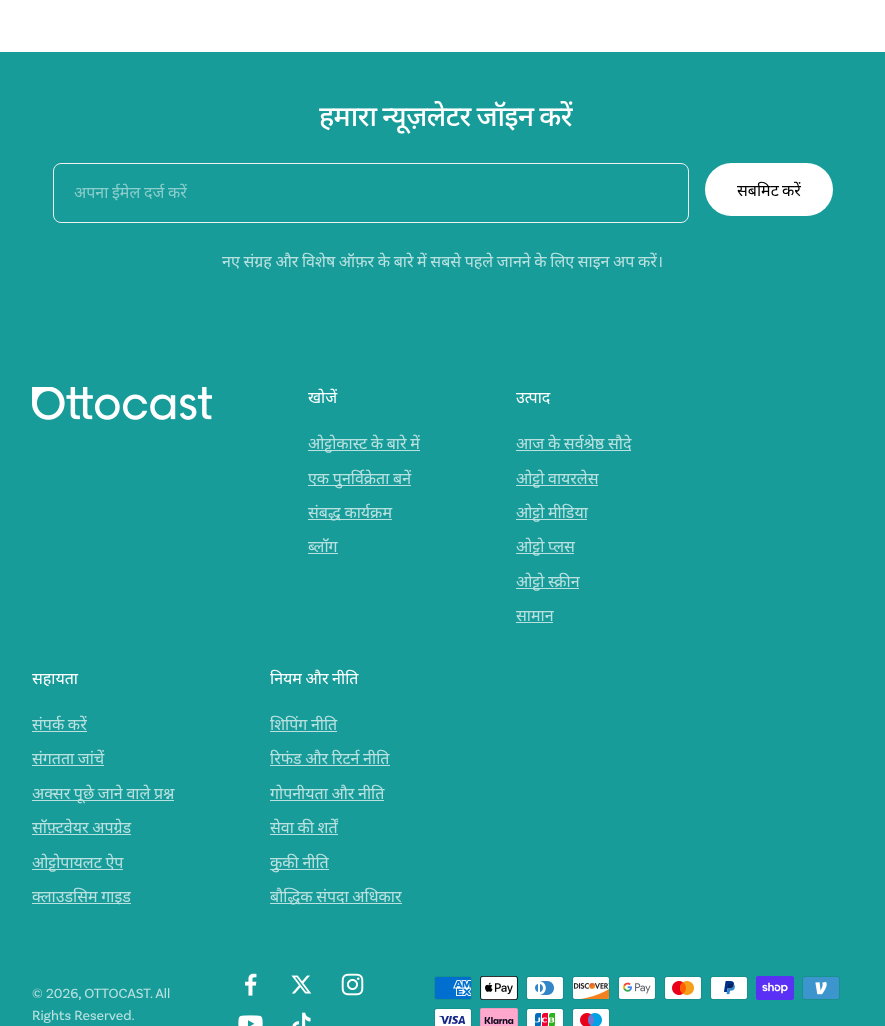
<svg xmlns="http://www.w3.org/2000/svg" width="885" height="1026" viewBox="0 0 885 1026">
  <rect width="100%" height="100%" fill="#ffffff"/>
  <rect x="0" y="52" width="885" height="974" fill="#179c99"/>
  <text x="319" y="126" word-spacing="-1" font-family="Noto Sans" font-size="28" font-weight="500" letter-spacing="-0.55" fill="#ffffff">हमारा न्यूज़लेटर जॉइन करें</text>
  <rect x="53.5" y="163.5" width="635" height="59" rx="7.5" fill="none" stroke="#eef1f2"/>
  <text x="74" y="198" word-spacing="-0.5" font-family="Noto Sans" font-size="16" fill="#8bcecc">अपना ईमेल दर्ज करें</text>
  <rect x="705" y="163" width="128" height="53" rx="26.5" fill="#ffffff"/>
  <text x="737" y="196" word-spacing="-1" font-family="Noto Sans" font-size="16" fill="#000000">सबमिट करें</text>
  <text x="222" y="267" word-spacing="-0.5" font-family="Noto Sans" font-size="16" fill="#b9e1e0">नए संग्रह और विशेष ऑफ़र के बारे में सबसे पहले जानने के लिए साइन अप करें।</text>
  <image x="32" y="387" width="180" height="33" href="img1.png"/>
  <text x="308" y="403" font-family="Noto Sans" font-size="16" fill="#ffffff">खोजें</text>
  <rect x="308" y="450" width="112" height="1" fill="#b9e1e0"/>
  <text x="308" y="449" word-spacing="-0.5" font-family="Noto Sans" font-size="16" fill="#b9e1e0">ओट्टोकास्ट के बारे में</text>
  <rect x="308" y="485" width="103" height="1" fill="#b9e1e0"/>
  <text x="308" y="484" word-spacing="-0.5" font-family="Noto Sans" font-size="16" fill="#b9e1e0">एक पुनर्विक्रेता बनें</text>
  <rect x="308" y="519" width="84" height="1" fill="#b9e1e0"/>
  <text x="308" y="518" word-spacing="-0.5" font-family="Noto Sans" font-size="16" fill="#b9e1e0">संबद्ध कार्यक्रम</text>
  <text x="308" y="552" font-family="Noto Sans" font-size="16" fill="#b9e1e0">ब्लॉग</text>
  <rect x="308" y="553" width="30" height="1" fill="#b9e1e0"/>
  <text x="516" y="403" font-family="Noto Sans" font-size="16" fill="#ffffff">उत्पाद</text>
  <text x="516" y="449" word-spacing="-0.5" font-family="Noto Sans" font-size="16" fill="#b9e1e0">आज के सर्वश्रेष्ठ सौदे</text>
  <rect x="516" y="450" width="115" height="1" fill="#b9e1e0"/>
  <rect x="516" y="485" width="82" height="1" fill="#b9e1e0"/>
  <text x="516" y="484" word-spacing="-0.5" font-family="Noto Sans" font-size="16" fill="#b9e1e0">ओट्टो वायरलेस</text>
  <rect x="516" y="519" width="71" height="1" fill="#b9e1e0"/>
  <text x="516" y="518" word-spacing="-0.5" font-family="Noto Sans" font-size="16" fill="#b9e1e0">ओट्टो मीडिया</text>
  <rect x="516" y="553" width="58" height="1" fill="#b9e1e0"/>
  <text x="516" y="552" word-spacing="-0.5" font-family="Noto Sans" font-size="16" fill="#b9e1e0">ओट्टो प्लस</text>
  <rect x="516" y="588" width="63" height="1" fill="#b9e1e0"/>
  <text x="516" y="587" word-spacing="-0.5" font-family="Noto Sans" font-size="16" fill="#b9e1e0">ओट्टो स्क्रीन</text>
  <text x="516" y="621" font-family="Noto Sans" font-size="16" fill="#b9e1e0">सामान</text>
  <rect x="516" y="622" width="37" height="1" fill="#b9e1e0"/>
  <text x="32" y="684" font-family="Noto Sans" font-size="16" fill="#ffffff">सहायता</text>
  <text x="32" y="730" word-spacing="-0.5" font-family="Noto Sans" font-size="16" fill="#b9e1e0">संपर्क करें</text>
  <rect x="32" y="731" width="55" height="1" fill="#b9e1e0"/>
  <text x="32" y="764" word-spacing="-0.5" font-family="Noto Sans" font-size="16" fill="#b9e1e0">संगतता जांचें</text>
  <rect x="32" y="765" width="72" height="1" fill="#b9e1e0"/>
  <rect x="32" y="800" width="142" height="1" fill="#b9e1e0"/>
  <text x="32" y="799" word-spacing="-0.5" font-family="Noto Sans" font-size="16" fill="#b9e1e0">अक्सर पूछे जाने वाले प्रश्न</text>
  <text x="32" y="833" word-spacing="-0.5" font-family="Noto Sans" font-size="16" fill="#b9e1e0">सॉफ़्टवेयर अपग्रेड</text>
  <rect x="32" y="834" width="99" height="1" fill="#b9e1e0"/>
  <rect x="32" y="869" width="91" height="1" fill="#b9e1e0"/>
  <text x="32" y="868" word-spacing="-0.5" font-family="Noto Sans" font-size="16" fill="#b9e1e0">ओट्टोपायलट ऐप</text>
  <rect x="32" y="903" width="99" height="1" fill="#b9e1e0"/>
  <text x="32" y="902" word-spacing="-0.5" font-family="Noto Sans" font-size="16" fill="#b9e1e0">क्लाउडसिम गाइड</text>
  <text x="270" y="684" word-spacing="-0.5" font-family="Noto Sans" font-size="16" fill="#ffffff">नियम और नीति</text>
  <text x="270" y="730" word-spacing="-0.5" font-family="Noto Sans" font-size="16" fill="#b9e1e0">शिपिंग नीति</text>
  <rect x="270" y="731" width="67" height="1" fill="#b9e1e0"/>
  <text x="270" y="764" word-spacing="-0.5" font-family="Noto Sans" font-size="16" fill="#b9e1e0">रिफंड और रिटर्न नीति</text>
  <rect x="270" y="765" width="120" height="1" fill="#b9e1e0"/>
  <text x="270" y="799" word-spacing="-0.5" font-family="Noto Sans" font-size="16" fill="#b9e1e0">गोपनीयता और नीति</text>
  <rect x="270" y="800" width="114" height="1" fill="#b9e1e0"/>
  <text x="270" y="833" word-spacing="-0.5" font-family="Noto Sans" font-size="16" fill="#b9e1e0">सेवा की शर्तें</text>
  <rect x="270" y="834" width="68" height="1" fill="#b9e1e0"/>
  <rect x="270" y="869" width="59" height="1" fill="#b9e1e0"/>
  <text x="270" y="868" word-spacing="-0.5" font-family="Noto Sans" font-size="16" fill="#b9e1e0">कुकी नीति</text>
  <rect x="270" y="903" width="132" height="1" fill="#b9e1e0"/>
  <text x="270" y="902" word-spacing="-0.5" font-family="Noto Sans" font-size="16" fill="#b9e1e0">बौद्धिक संपदा अधिकार</text>
  <text x="32" y="998" font-family="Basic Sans" font-size="14" fill="#b9e1e0">© 2026, OTTOCAST. All</text>
  <text x="32" y="1020" font-family="Basic Sans" font-size="14" fill="#b9e1e0">Rights Reserved.</text>
  <image x="245" y="973" width="12" height="23" href="img2.png"/>
  <image x="291" y="975" width="21" height="19" href="img3.png"/>
  <image x="341" y="973" width="23" height="23" href="img4.png"/>
  <image x="238" y="1015" width="25" height="11" href="img5.png"/>
  <image x="292" y="1012" width="19" height="14" href="img6.png"/>
  <image x="434" y="976" width="38" height="24" href="img7.png"/>
  <image x="480" y="976" width="38" height="24" href="img8.png"/>
  <image x="526" y="976" width="38" height="24" href="img9.png"/>
  <image x="572" y="976" width="38" height="24" href="img10.png"/>
  <image x="618" y="976" width="38" height="24" href="img11.png"/>
  <image x="664" y="976" width="38" height="24" href="img12.png"/>
  <image x="710" y="976" width="38" height="24" href="img13.png"/>
  <image x="756" y="976" width="38" height="24" href="img14.png"/>
  <image x="802" y="976" width="38" height="24" href="img15.png"/>
  <image x="434" y="1008" width="38" height="18" href="img16.png"/>
  <image x="480" y="1008" width="38" height="18" href="img17.png"/>
  <image x="526" y="1008" width="38" height="18" href="img18.png"/>
  <image x="572" y="1008" width="38" height="18" href="img19.png"/>
</svg>
